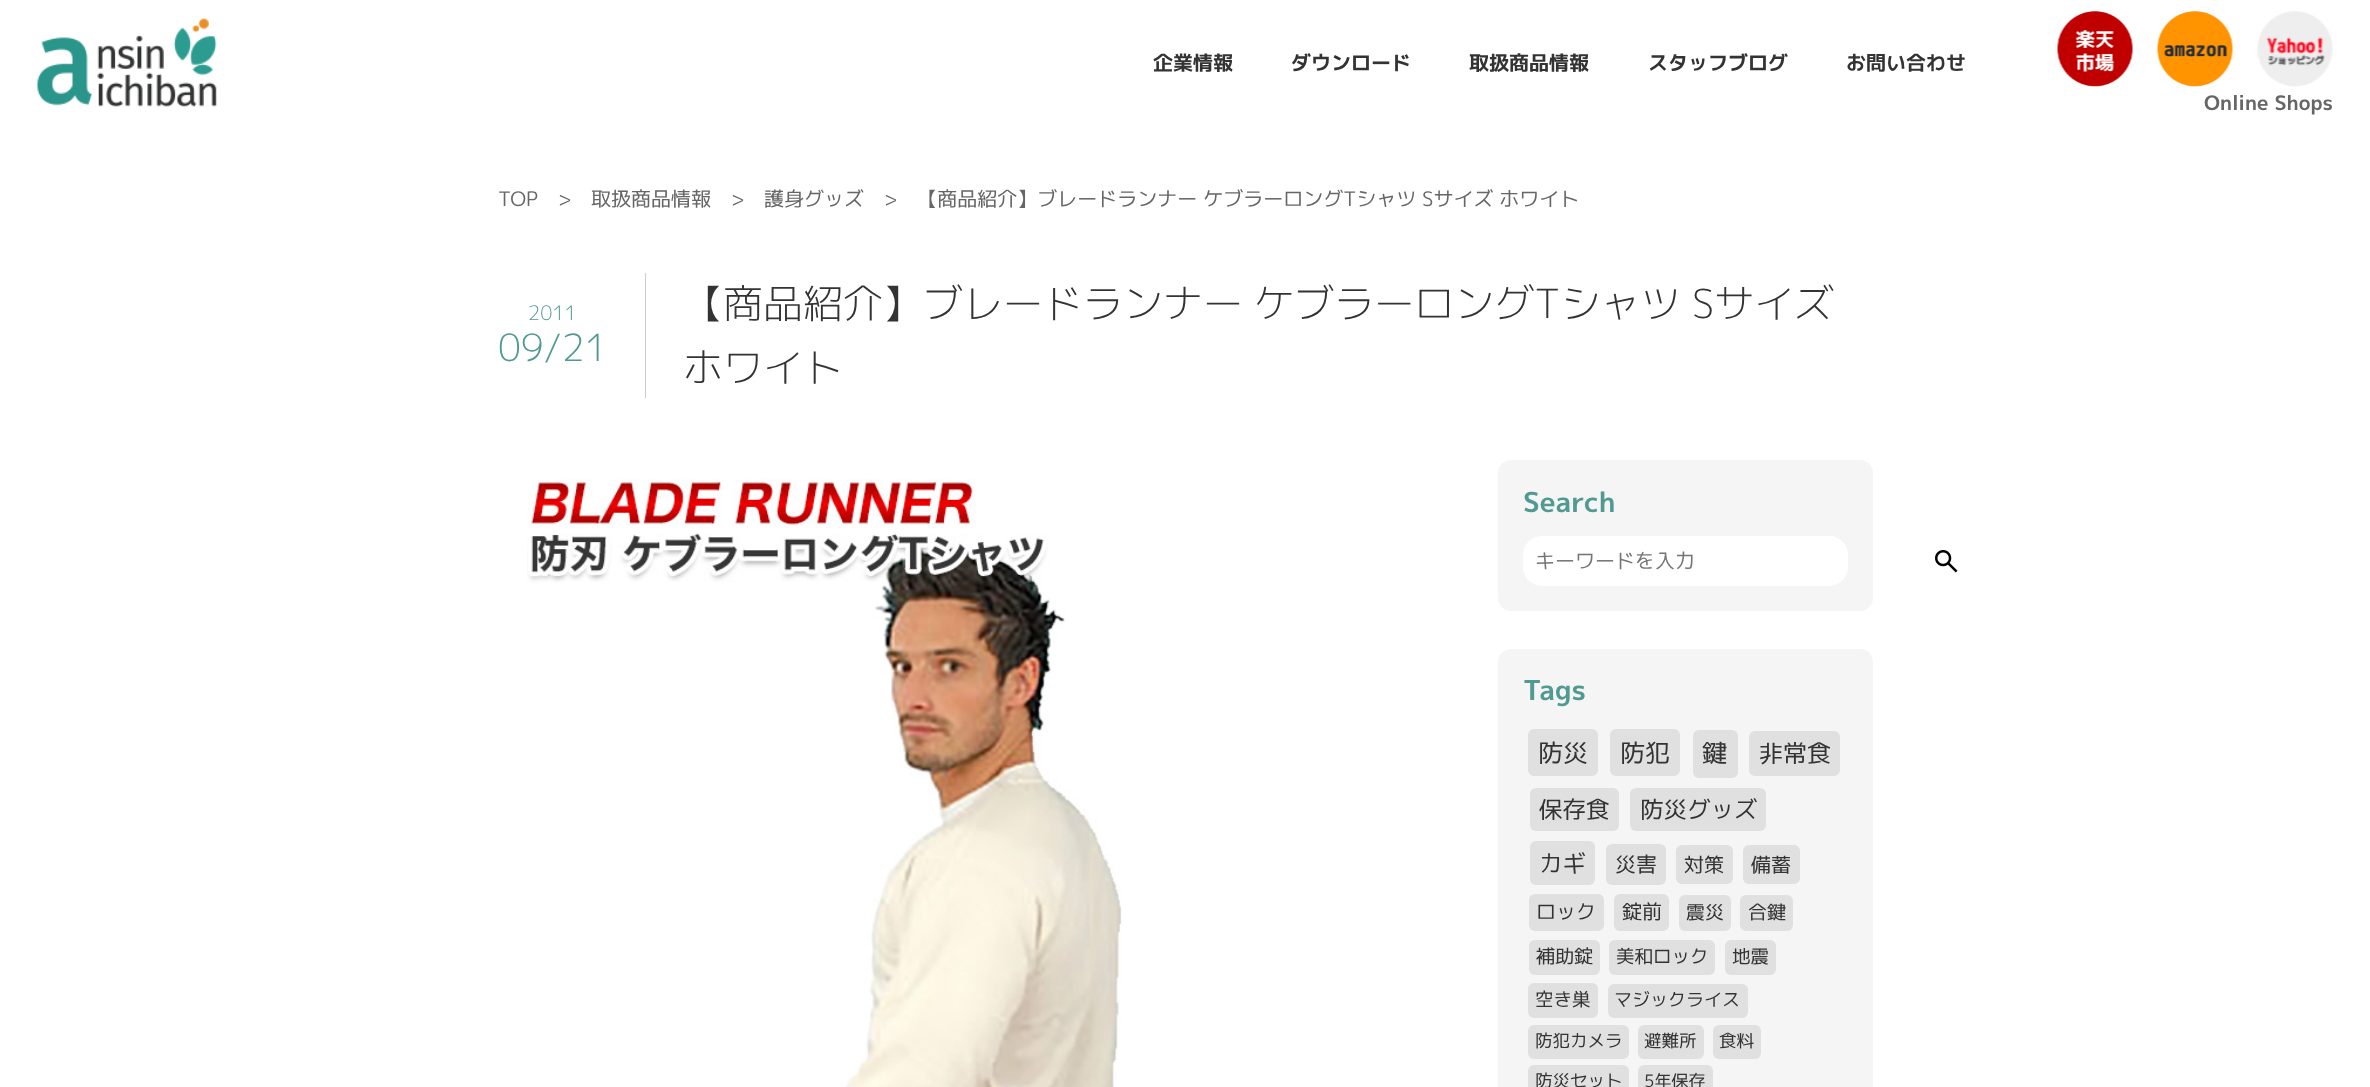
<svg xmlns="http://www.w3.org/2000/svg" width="2370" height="1087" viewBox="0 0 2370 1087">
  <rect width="100%" height="100%" fill="#ffffff"/>
  <image x="37" y="18" width="180" height="89" href="img1.png"/>
  <text x="1153" y="70" font-family="'M PLUS 1p'" font-size="20" font-weight="bold" fill="#333333">企業情報</text>
  <text x="1291" y="70" font-family="'M PLUS 1p'" font-size="20" font-weight="bold" fill="#333333">ダウンロード</text>
  <text x="1469" y="70" font-family="'M PLUS 1p'" font-size="20" font-weight="bold" fill="#333333">取扱商品情報</text>
  <text x="1648" y="70" font-family="'M PLUS 1p'" font-size="20" font-weight="bold" fill="#333333">スタッフブログ</text>
  <text x="1846" y="70" font-family="'M PLUS 1p'" font-size="20" font-weight="bold" fill="#333333">お問い合わせ</text>
  <image x="2057" y="11" width="76" height="76" href="img2.png"/>
  <image x="2157" y="11" width="76" height="76" href="img3.png"/>
  <image x="2257" y="11" width="76" height="76" href="img4.png"/>
  <text x="2204" y="110" font-family="'M PLUS 1p'" font-size="20" font-weight="bold" fill="#666666">Online Shops</text>
  <text x="498" y="206" font-family="'M PLUS 1p'" font-size="20" fill="#666666">TOP</text>
  <text x="558" y="206" font-family="'M PLUS 1p'" font-size="20" fill="#666666">&gt;</text>
  <text x="591" y="206" font-family="'M PLUS 1p'" font-size="20" fill="#666666">取扱商品情報</text>
  <text x="731" y="206" font-family="'M PLUS 1p'" font-size="20" fill="#666666">&gt;</text>
  <text x="764" y="206" font-family="'M PLUS 1p'" font-size="20" fill="#666666">護身グッズ</text>
  <text x="884" y="206" font-family="'M PLUS 1p'" font-size="20" fill="#666666">&gt;　【商品紹介】ブレードランナー ケブラーロングTシャツ Sサイズ ホワイト</text>
  <rect x="645" y="273" width="1" height="125" fill="#cccccc"/>
  <text x="528" y="320" font-family="'M PLUS 1p'" font-size="20" font-weight="300" fill="#509a91">2011</text>
  <text x="498" y="361" font-family="'M PLUS 1p'" font-size="37.5" font-weight="300" fill="#509a91">09/21</text>
  <text x="683" y="318" font-family="'M PLUS 1p'" font-size="40" font-weight="300" fill="#333333">【商品紹介】ブレードランナー ケブラーロングTシャツ Sサイズ</text>
  <text x="683" y="382" font-family="'M PLUS 1p'" font-size="40" font-weight="300" fill="#333333">ホワイト</text>
  <image x="527" y="479" width="595" height="608" href="img5.png"/>
  <rect x="1498" y="460" width="375" height="151" rx="13" fill="#f5f5f5"/>
  <text x="1523" y="512" font-family="'M PLUS 1p'" font-size="27.5" font-weight="bold" fill="#509a91">Search</text>
  <rect x="1523" y="536" width="325" height="50" rx="19" fill="#ffffff"/>
  <text x="1535" y="568" font-family="'M PLUS 1p'" font-size="20" fill="#757575">キーワードを入力</text>
  <image x="1935" y="550" width="23" height="23" href="img6.png"/>
  <rect x="1498" y="649" width="375" height="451" rx="13" fill="#f5f5f5"/>
  <text x="1523" y="700" font-family="'M PLUS 1p'" font-size="27.5" font-weight="bold" fill="#509a91">Tags</text>
  <rect x="1528" y="729" width="70" height="47" rx="6" fill="#e0e0e0"/>
  <text x="1538" y="762" font-family="'M PLUS 1p'" font-size="25" fill="#333333">防災</text>
  <rect x="1610" y="729" width="70" height="47" rx="6" fill="#e0e0e0"/>
  <text x="1620" y="762" font-family="'M PLUS 1p'" font-size="25" fill="#333333">防犯</text>
  <rect x="1693" y="730" width="45" height="48" rx="6" fill="#e0e0e0"/>
  <text x="1702" y="762" font-family="'M PLUS 1p'" font-size="25" fill="#333333">鍵</text>
  <rect x="1749" y="731" width="91" height="45" rx="6" fill="#e0e0e0"/>
  <text x="1759" y="762" font-family="'M PLUS 1p'" font-size="24" fill="#333333">非常食</text>
  <rect x="1530" y="788" width="89" height="43" rx="6" fill="#e0e0e0"/>
  <text x="1539" y="818" font-family="'M PLUS 1p'" font-size="23.5" fill="#333333">保存食</text>
  <rect x="1630" y="788" width="136" height="43" rx="6" fill="#e0e0e0"/>
  <text x="1640" y="818" font-family="'M PLUS 1p'" font-size="23.5" fill="#333333">防災グッズ</text>
  <rect x="1530" y="841" width="65" height="44" rx="6" fill="#e0e0e0"/>
  <text x="1539" y="872" font-family="'M PLUS 1p'" font-size="23.5" fill="#333333">カギ</text>
  <rect x="1606" y="844" width="60" height="41" rx="6" fill="#e0e0e0"/>
  <text x="1615" y="872" font-family="'M PLUS 1p'" font-size="21" fill="#333333">災害</text>
  <rect x="1676" y="845" width="57" height="39" rx="6" fill="#e0e0e0"/>
  <text x="1684" y="872" font-family="'M PLUS 1p'" font-size="20" fill="#333333">対策</text>
  <rect x="1743" y="845" width="57" height="39" rx="6" fill="#e0e0e0"/>
  <text x="1751" y="872" font-family="'M PLUS 1p'" font-size="20" fill="#333333">備蓄</text>
  <rect x="1529" y="894" width="75" height="37" rx="6" fill="#e0e0e0"/>
  <text x="1536" y="919" font-family="'M PLUS 1p'" font-size="20" fill="#333333">ロック</text>
  <rect x="1614" y="894" width="55" height="37" rx="6" fill="#e0e0e0"/>
  <text x="1622" y="919" font-family="'M PLUS 1p'" font-size="20" fill="#333333">錠前</text>
  <rect x="1679" y="895" width="52" height="36" rx="6" fill="#e0e0e0"/>
  <text x="1686" y="919" font-family="'M PLUS 1p'" font-size="19" fill="#333333">震災</text>
  <rect x="1740" y="895" width="53" height="36" rx="6" fill="#e0e0e0"/>
  <text x="1748" y="919" font-family="'M PLUS 1p'" font-size="19" fill="#333333">合鍵</text>
  <rect x="1529" y="940" width="71" height="35" rx="6" fill="#e0e0e0"/>
  <text x="1536" y="963" font-family="'M PLUS 1p'" font-size="19" fill="#333333">補助錠</text>
  <rect x="1609" y="940" width="106" height="35" rx="6" fill="#e0e0e0"/>
  <text x="1616" y="963" font-family="'M PLUS 1p'" font-size="18.5" fill="#333333">美和ロック</text>
  <rect x="1725" y="940" width="51" height="35" rx="6" fill="#e0e0e0"/>
  <text x="1732" y="963" font-family="'M PLUS 1p'" font-size="18.5" fill="#333333">地震</text>
  <rect x="1528" y="983" width="70" height="35" rx="6" fill="#e0e0e0"/>
  <text x="1535" y="1006" font-family="'M PLUS 1p'" font-size="18.5" fill="#333333">空き巣</text>
  <rect x="1608" y="984" width="140" height="34" rx="6" fill="#e0e0e0"/>
  <text x="1614" y="1006" font-family="'M PLUS 1p'" font-size="18" fill="#333333">マジックライス</text>
  <rect x="1528" y="1025" width="101" height="34" rx="6" fill="#e0e0e0"/>
  <text x="1535" y="1047" font-family="'M PLUS 1p'" font-size="17.5" fill="#333333">防犯カメラ</text>
  <rect x="1638" y="1025" width="66" height="34" rx="6" fill="#e0e0e0"/>
  <text x="1644" y="1047" font-family="'M PLUS 1p'" font-size="17.5" fill="#333333">避難所</text>
  <rect x="1713" y="1025" width="48" height="34" rx="6" fill="#e0e0e0"/>
  <text x="1719" y="1047" font-family="'M PLUS 1p'" font-size="17.5" fill="#333333">食料</text>
  <rect x="1528" y="1065" width="101" height="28" rx="6" fill="#e0e0e0"/>
  <text x="1535" y="1087" font-family="'M PLUS 1p'" font-size="17.5" fill="#333333">防災セット</text>
  <rect x="1638" y="1065" width="75" height="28" rx="6" fill="#e0e0e0"/>
  <text x="1644" y="1087" font-family="'M PLUS 1p'" font-size="17" fill="#333333">5年保存</text>
</svg>
